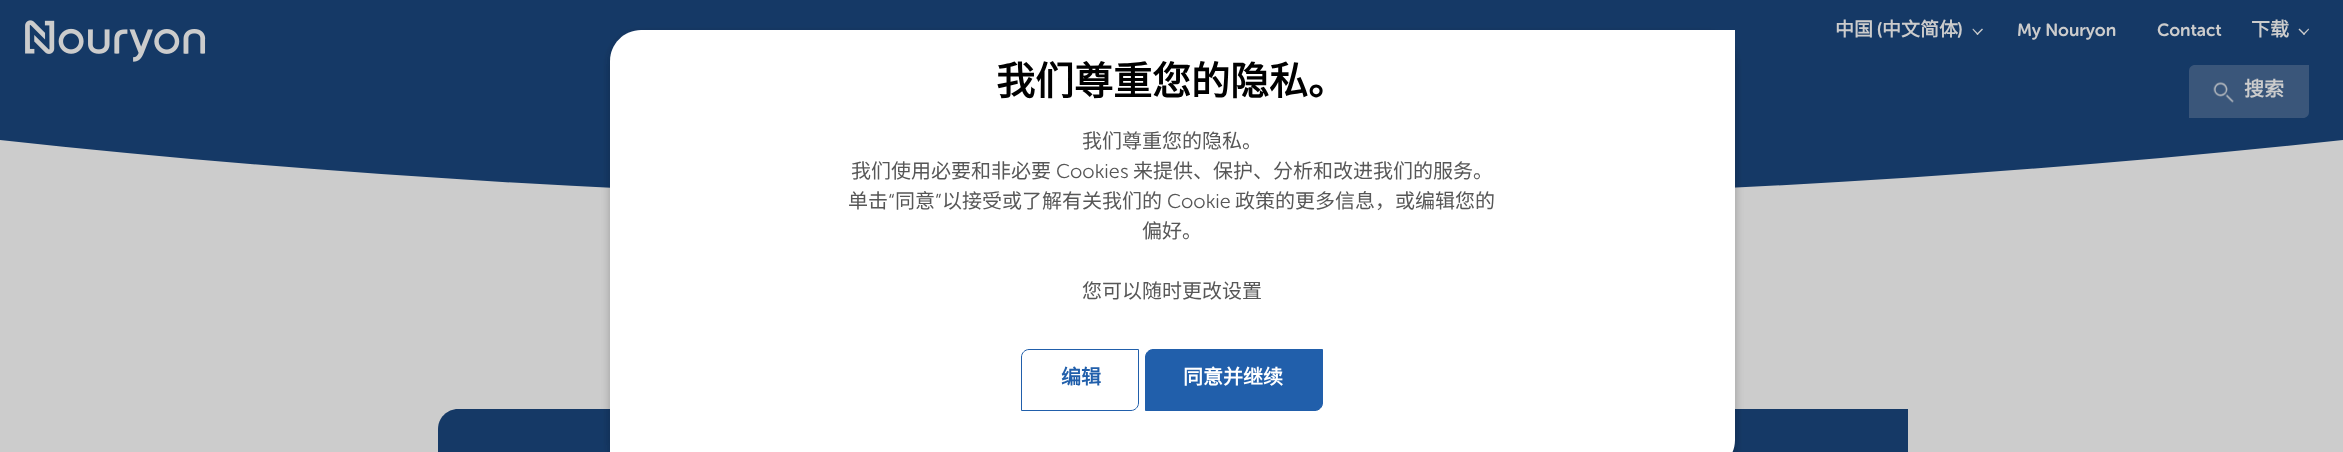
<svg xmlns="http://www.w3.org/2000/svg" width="2343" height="452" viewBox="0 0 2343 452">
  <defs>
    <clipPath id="clip1"><rect x="0" y="124" width="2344" height="101"/></clipPath>
    <filter id="blur1" x="-50%" y="-200%" width="200%" height="500%"><feGaussianBlur stdDeviation="5"/></filter>
  </defs>
  <rect width="100%" height="100%" fill="#cccccc"/>
  <rect x="0" y="0" width="2343" height="188" fill="#153966"/>
  <g clip-path="url(#clip1)">
    <path d="M0 140V227H2343V140C1990 178 1614 200 1224 201C796 203 384 182 0 140Z" fill="#cccccc"/>
  </g>
  <path d="M458 409H1908V452C1908 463 1899 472 1888 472H438V429C438 418 447 409 458 409Z" fill="#153966"/>
  <rect x="610" y="34" width="1125" height="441" rx="31" fill="#000000" fill-opacity="0.12" filter="url(#blur1)"/>
  <rect x="610" y="34" width="1125" height="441" rx="31" fill="#000000" fill-opacity="0.12" filter="url(#blur1)"/>
  <path d="M641 30H1735V440C1735 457 1721 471 1704 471H610V61C610 44 624 30 641 30Z" fill="#ffffff"/>
  <text x="996" y="95" font-family="Noto Sans CJK SC" font-size="39" font-weight="bold" fill="#000000">我们尊重您的隐私。</text>
  <text x="1082" y="148" font-family="Noto Sans CJK SC" font-size="20" fill="#575757">我们尊重您的隐私。</text>
  <text x="851" y="178" font-family="Noto Sans CJK SC" font-size="20" fill="#575757">我们使用必要和非必要</text>
  <text x="1056" y="178" font-family="'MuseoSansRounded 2'" font-size="20" fill="#575757">Cookies</text>
  <text x="1133" y="178" font-family="Noto Sans CJK SC" font-size="20" fill="#575757">来提供、保护、分析和改进我们的服务。</text>
  <text x="848" y="208" font-family="Noto Sans CJK SC" font-size="20" fill="#575757">单击</text>
  <text x="888" y="208" font-family="'MuseoSansRounded 2'" font-size="20" fill="#575757">“</text>
  <text x="895" y="208" font-family="Noto Sans CJK SC" font-size="20" fill="#575757">同意</text>
  <text x="935" y="208" font-family="'MuseoSansRounded 2'" font-size="20" fill="#575757">”</text>
  <text x="942" y="208" font-family="Noto Sans CJK SC" font-size="20" fill="#575757">以接受或了解有关我们的</text>
  <text x="1167" y="208" font-family="'MuseoSansRounded 2'" font-size="20" fill="#575757">Cookie</text>
  <text x="1235" y="208" font-family="Noto Sans CJK SC" font-size="20" fill="#575757">政策的更多信息，或编辑您的</text>
  <text x="1142" y="238" font-family="Noto Sans CJK SC" font-size="20" fill="#575757">偏好。</text>
  <text x="1082" y="298" font-family="Noto Sans CJK SC" font-size="20" fill="#575757">您可以随时更改设置</text>
  <path d="M1029 349.5H1138.5V403C1138.5 407 1135 410.5 1131 410.5H1021.5V357C1021.5 353 1025 349.5 1029 349.5Z" fill="none" stroke="#215fab"/>
  <text x="1061" y="384" font-family="Noto Sans CJK SC" font-size="20" font-weight="bold" fill="#215fab">编辑</text>
  <path d="M1153 349.5H1322.5V403C1322.5 407 1319 410.5 1315 410.5H1145.5V357C1145.5 353 1149 349.5 1153 349.5Z" fill="#215fab" stroke="#215fab"/>
  <text x="1183" y="384" font-family="Noto Sans CJK SC" font-size="20" font-weight="bold" fill="#ffffff">同意并继续</text>
  <image x="25" y="20" width="181" height="42" href="img1.png"/>
  <text x="1835" y="36" font-family="Noto Sans CJK SC" font-size="19" font-weight="bold" fill="#cccccc">中国</text>
  <text x="1877" y="36" font-family="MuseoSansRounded" font-size="19" fill="#cccccc">(</text>
  <text x="1882" y="36" font-family="Noto Sans CJK SC" font-size="19" font-weight="bold" fill="#cccccc">中文简体</text>
  <text x="1957" y="36" font-family="MuseoSansRounded" font-size="19" fill="#cccccc">)</text>
  <path d="M1982 28.5L1983 29.5L1977.5 35L1976.5 34Z" fill="#cccccc"/>
  <path d="M1973 28.5L1978.5 34L1977.5 35L1972.5 29.5Z" fill="#cccccc"/>
  <text x="2017" y="36" font-family="MuseoSansRounded" font-size="17.5" fill="#cccccc">My Nouryon</text>
  <text x="2157" y="36" font-family="MuseoSansRounded" font-size="17.5" fill="#cccccc">Contact</text>
  <text x="2251" y="36" font-family="Noto Sans CJK SC" font-size="19" font-weight="bold" fill="#cccccc">下载</text>
  <path d="M2308.5 28.5L2309 29.5L2304 35L2303 34Z" fill="#cccccc"/>
  <path d="M2299.5 28.5L2305 34L2304 35L2298.5 29.5Z" fill="#cccccc"/>
  <path d="M2195 65H2309V112C2309 115.5 2306.5 118 2303 118H2189V71C2189 67.5 2191.5 65 2195 65Z" fill="#3a567a"/>
  <image x="2213" y="82" width="21" height="21" href="img2.png"/>
  <text x="2244" y="96" font-family="Noto Sans CJK SC" font-size="20" font-weight="bold" fill="#cccccc">搜索</text>
</svg>
